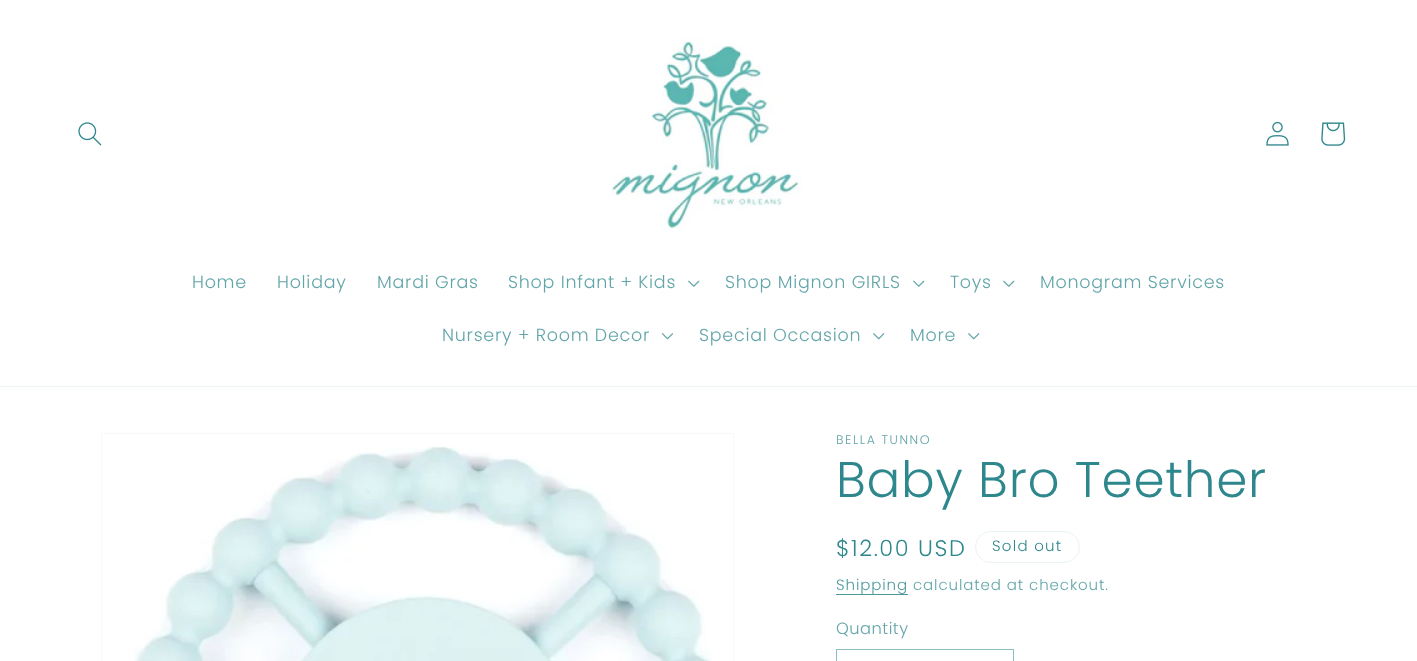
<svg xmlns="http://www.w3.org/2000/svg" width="1417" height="661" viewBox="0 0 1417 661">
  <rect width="100%" height="100%" fill="#ffffff"/>
  <rect x="0" y="386" width="1417" height="1" fill="#eef5f6"/>
  <image x="78" y="122" width="24" height="24" href="img1.png"/>
  <image x="611" y="37" width="191" height="196" href="img2.png"/>
  <image x="1266" y="121" width="23" height="25" href="img3.png"/>
  <image x="1321" y="122" width="25" height="24" href="img4.png"/>
  <text x="192" y="288" font-family="Poppins" font-size="17.5" font-weight="300" letter-spacing="0.75" fill="#62a5a9">Home</text>
  <text x="277" y="288" font-family="Poppins" font-size="17.5" font-weight="300" letter-spacing="0.75" fill="#62a5a9">Holiday</text>
  <text x="377" y="288" font-family="Poppins" font-size="17.5" font-weight="300" letter-spacing="0.75" fill="#62a5a9">Mardi Gras</text>
  <text x="508" y="288" font-family="Poppins" font-size="17.5" font-weight="300" letter-spacing="0.75" fill="#62a5a9">Shop Infant + Kids</text>
  <image x="688" y="280" width="12" height="7" href="img5.png"/>
  <text x="725" y="288" font-family="Poppins" font-size="17.5" font-weight="300" letter-spacing="0.75" fill="#62a5a9">Shop Mignon GIRLS</text>
  <image x="913" y="280" width="12" height="7" href="img5.png"/>
  <text x="950" y="288" font-family="Poppins" font-size="17.5" font-weight="300" letter-spacing="0.75" fill="#62a5a9">Toys</text>
  <image x="1003" y="280" width="12" height="7" href="img5.png"/>
  <text x="1040" y="288" font-family="Poppins" font-size="17.5" font-weight="300" letter-spacing="0.75" fill="#62a5a9">Monogram Services</text>
  <text x="442" y="341" font-family="Poppins" font-size="17.5" font-weight="300" letter-spacing="0.75" fill="#62a5a9">Nursery + Room Decor</text>
  <image x="661" y="333" width="13" height="7" href="img6.png"/>
  <text x="699" y="341" font-family="Poppins" font-size="17.5" font-weight="300" letter-spacing="0.75" fill="#62a5a9">Special Occasion</text>
  <image x="873" y="333" width="12" height="7" href="img7.png"/>
  <text x="910" y="341" font-family="Poppins" font-size="17.5" font-weight="300" letter-spacing="0.75" fill="#62a5a9">More</text>
  <image x="968" y="333" width="12" height="7" href="img7.png"/>
  <rect x="101.5" y="433.5" width="632" height="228" fill="none" stroke="#f5f9f9"/>
  <image x="134" y="446" width="578" height="215" href="img8.png"/>
  <text x="836" y="444" font-family="Poppins" font-size="12.5" font-weight="300" letter-spacing="1.6" fill="#62a5a9">BELLA TUNNO</text>
  <text x="836" y="497" font-family="Poppins" font-size="50" font-weight="300" letter-spacing="0.75" fill="#2e878c">Baby Bro Teether</text>
  <text x="836" y="556" font-family="Poppins" font-size="22.5" font-weight="300" letter-spacing="1.6" fill="#2e878c">$12.00 USD</text>
  <rect x="975.5" y="531.5" width="104" height="31" rx="15.5" fill="none" stroke="#eaf3f4"/>
  <text x="992" y="551" font-family="Poppins" font-size="15" font-weight="300" letter-spacing="1.25" fill="#2e878c">Sold out</text>
  <text x="836" y="590" font-family="Poppins" font-size="15" font-weight="300" letter-spacing="0.9" fill="#4d999d">Shipping</text>
  <rect x="836" y="594" width="72" height="1" fill="#4d999d"/>
  <text x="913" y="590" font-family="Poppins" font-size="15" font-weight="300" letter-spacing="0.9" fill="#62a5a9">calculated at checkout.</text>
  <text x="836" y="634" font-family="Poppins" font-size="16.25" font-weight="300" letter-spacing="0.5" fill="#62a5a9">Quantity</text>
  <rect x="836.5" y="649.5" width="177" height="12" fill="none" stroke="#8cbdc0"/>
</svg>
